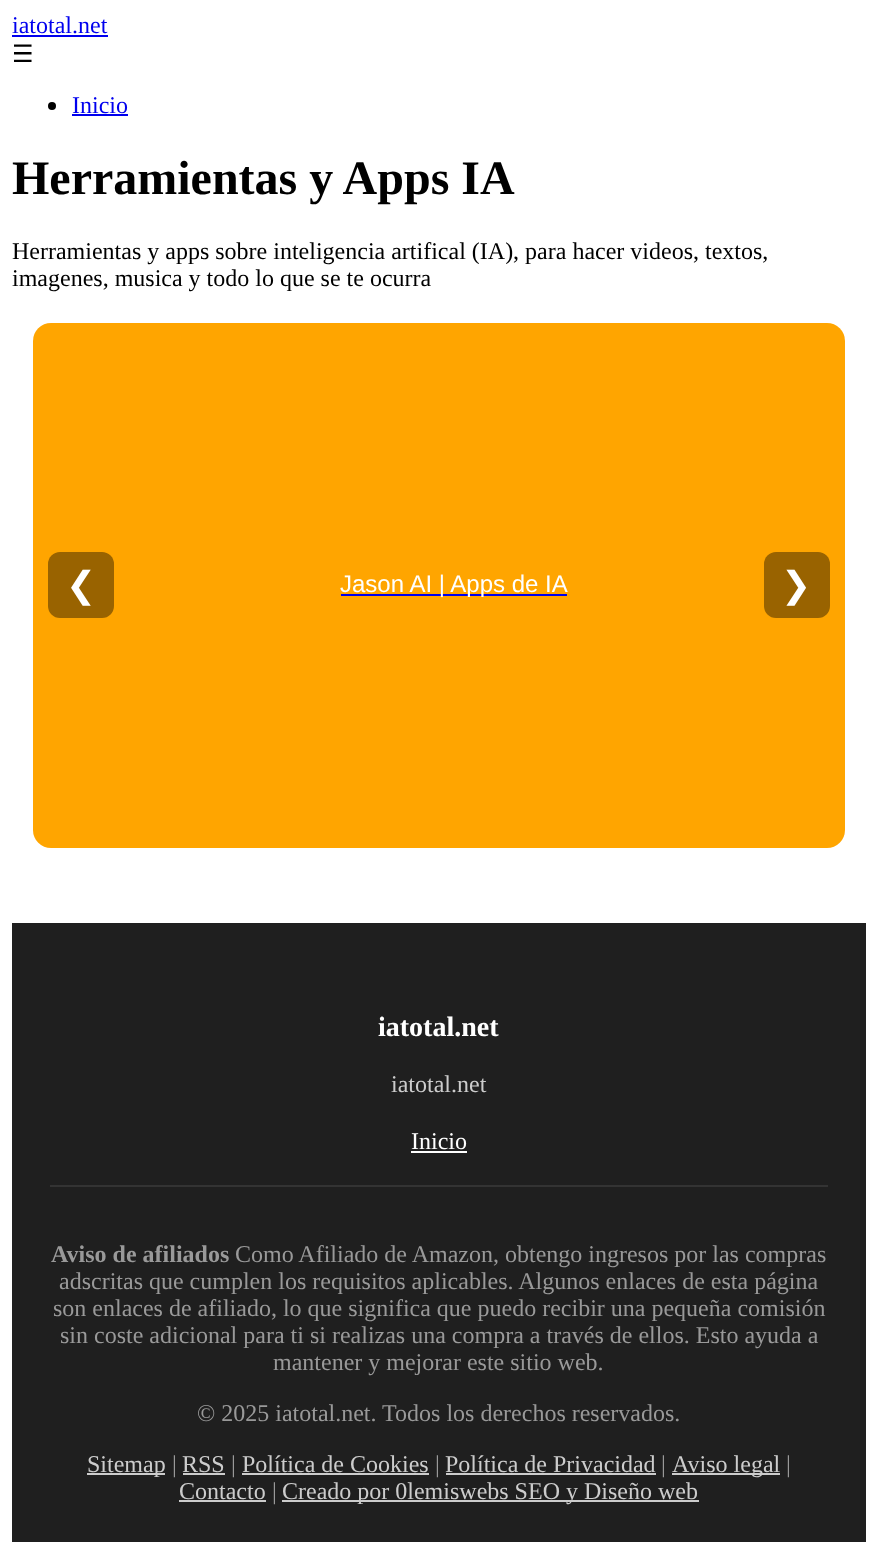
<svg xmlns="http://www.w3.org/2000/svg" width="877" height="1542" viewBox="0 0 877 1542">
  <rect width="100%" height="100%" fill="#ffffff"/>
  <text x="12" y="33" font-family="Liberation Serif" font-size="24" fill="#0000ee">iatotal.net</text>
  <rect x="12" y="35" width="96" height="2" fill="#0000ee"/>
  <text x="12" y="62" font-family="DejaVu Sans" font-size="24" fill="#000000">☰</text>
  <circle cx="52" cy="106" r="4" fill="#000000"/>
  <text x="72" y="113" font-family="Liberation Serif" font-size="24" fill="#0000ee">Inicio</text>
  <rect x="72" y="114" width="56" height="2" fill="#0000ee"/>
  <text x="12" y="194" font-family="Liberation Serif" font-size="48" font-weight="bold" fill="#000000">Herramientas y Apps IA</text>
  <text x="12" y="259" font-family="Liberation Serif" font-size="24" fill="#000000">Herramientas y apps sobre inteligencia artifical (IA), para hacer videos, textos,</text>
  <text x="12" y="286" font-family="Liberation Serif" font-size="24" fill="#000000">imagenes, musica y todo lo que se te ocurra</text>
  <rect x="33" y="323" width="812" height="525" rx="18" fill="#ffa500"/>
  <rect x="48" y="552" width="66" height="66" rx="12" fill="#996300"/>
  <text x="66" y="597" font-family="DejaVu Sans" font-size="36" fill="#ffffff">❮</text>
  <rect x="341" y="594" width="226" height="2" fill="#0000ee"/>
  <text x="340" y="592" font-family="Liberation Sans" font-size="24" fill="#ffffff">Jason AI | Apps de IA</text>
  <rect x="764" y="552" width="66" height="66" rx="12" fill="#996300"/>
  <text x="781" y="597" font-family="DejaVu Sans" font-size="36" fill="#ffffff">❯</text>
  <rect x="12" y="923" width="854" height="619" fill="#1f1f1f"/>
  <text x="378" y="1036" font-family="Liberation Serif" font-size="28" font-weight="bold" fill="#ffffff">iatotal.net</text>
  <text x="391" y="1092" font-family="Liberation Serif" font-size="24" fill="#cccccc">iatotal.net</text>
  <text x="411" y="1149" font-family="Liberation Serif" font-size="24" fill="#ffffff">Inicio</text>
  <rect x="411" y="1151" width="56" height="2" fill="#ffffff"/>
  <rect x="50" y="1185" width="778" height="2" fill="#333333"/>
  <text x="51" y="1262" font-family="Liberation Serif" font-size="24" font-weight="bold" fill="#999999">Aviso de afiliados</text>
  <text x="235" y="1262" font-family="Liberation Serif" font-size="24" fill="#999999">Como Afiliado de Amazon, obtengo ingresos por las compras</text>
  <text x="59" y="1289" font-family="Liberation Serif" font-size="24" fill="#999999">adscritas que cumplen los requisitos aplicables. Algunos enlaces de esta página</text>
  <text x="53" y="1316" font-family="Liberation Serif" font-size="24" fill="#999999">son enlaces de afiliado, lo que significa que puedo recibir una pequeña comisión</text>
  <text x="60" y="1343" font-family="Liberation Serif" font-size="24" fill="#999999">sin coste adicional para ti si realizas una compra a través de ellos. Esto ayuda a</text>
  <text x="273" y="1370" font-family="Liberation Serif" font-size="24" fill="#999999">mantener y mejorar este sitio web.</text>
  <text x="197" y="1421" font-family="Liberation Serif" font-size="24" fill="#999999">© 2025 iatotal.net. Todos los derechos reservados.</text>
  <rect x="87" y="1473" width="78" height="2" fill="#cccccc"/>
  <text x="87" y="1472" font-family="Liberation Serif" font-size="24" fill="#cccccc">Sitemap</text>
  <text x="172" y="1472" font-family="Liberation Serif" font-size="24" fill="#999999">|</text>
  <text x="182" y="1472" font-family="Liberation Serif" font-size="24" fill="#cccccc">RSS</text>
  <rect x="183" y="1473" width="42" height="2" fill="#cccccc"/>
  <text x="231" y="1472" font-family="Liberation Serif" font-size="24" fill="#999999">|</text>
  <text x="242" y="1472" font-family="Liberation Serif" font-size="24" fill="#cccccc">Política de Cookies</text>
  <rect x="242" y="1473" width="187" height="2" fill="#cccccc"/>
  <text x="435" y="1472" font-family="Liberation Serif" font-size="24" fill="#999999">|</text>
  <text x="445" y="1472" font-family="Liberation Serif" font-size="24" fill="#cccccc">Política de Privacidad</text>
  <rect x="446" y="1473" width="210" height="2" fill="#cccccc"/>
  <text x="661" y="1472" font-family="Liberation Serif" font-size="24" fill="#999999">|</text>
  <rect x="672" y="1473" width="108" height="2" fill="#cccccc"/>
  <text x="672" y="1472" font-family="Liberation Serif" font-size="24" fill="#cccccc">Aviso legal</text>
  <text x="786" y="1472" font-family="Liberation Serif" font-size="24" fill="#999999">|</text>
  <text x="179" y="1499" font-family="Liberation Serif" font-size="24" fill="#cccccc">Contacto</text>
  <rect x="179" y="1500" width="87" height="2" fill="#cccccc"/>
  <text x="272" y="1499" font-family="Liberation Serif" font-size="24" fill="#999999">|</text>
  <rect x="282" y="1500" width="417" height="2" fill="#cccccc"/>
  <text x="282" y="1499" font-family="Liberation Serif" font-size="24" fill="#cccccc">Creado por 0lemiswebs SEO y Diseño web</text>
</svg>
